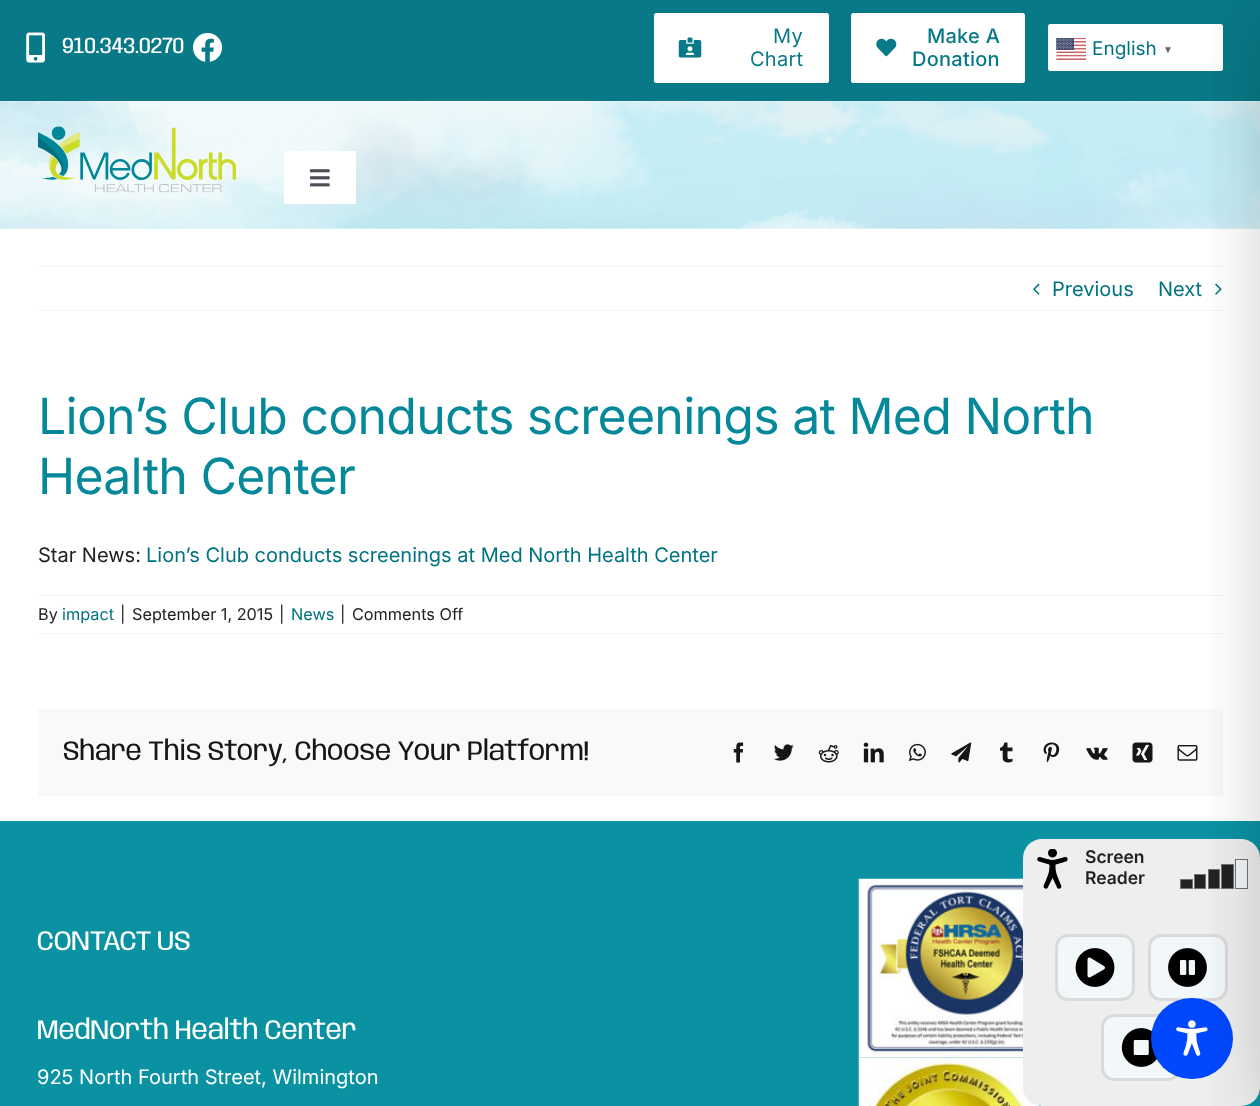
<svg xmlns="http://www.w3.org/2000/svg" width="1260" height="1106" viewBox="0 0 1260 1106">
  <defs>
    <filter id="blur1" x="-50%" y="-200%" width="200%" height="500%"><feGaussianBlur stdDeviation="37.5"/></filter>
  </defs>
  <rect width="100%" height="100%" fill="#ffffff"/>
  <rect x="0" y="0" width="1260" height="101" fill="#087987"/>
  <image x="26" y="32" width="19" height="31" href="img1.png"/>
  <text x="62" y="53" font-family="Anybody" font-size="22.5" letter-spacing="-0.3" fill="#ffffff">910.343.0270</text>
  <image x="193" y="33" width="29" height="29" href="img2.png"/>
  <rect x="654" y="13" width="175" height="70" rx="2.5" fill="#ffffff"/>
  <image x="678" y="37" width="24" height="21" href="img3.png"/>
  <text x="773" y="43" font-family="Inter" font-size="20" letter-spacing="0.25" fill="#087987">My</text>
  <text x="750" y="66" font-family="Inter" font-size="20" letter-spacing="0.25" fill="#087987">Chart</text>
  <rect x="851" y="13" width="174" height="70" rx="2.5" fill="#ffffff"/>
  <image x="876" y="38" width="21" height="19" href="img4.png"/>
  <text x="927" y="43" font-family="Inter" font-size="20" font-weight="500" letter-spacing="0.25" fill="#087987">Make A</text>
  <text x="912" y="66" font-family="Inter" font-size="20" font-weight="500" letter-spacing="0.25" fill="#087987">Donation</text>
  <rect x="1048" y="24" width="175" height="47" rx="2.5" fill="#ffffff"/>
  <image x="1056" y="38" width="30" height="22" href="img5.png"/>
  <text x="1092" y="55" font-family="Inter" font-size="19" fill="#007380">English</text>
  <text x="1163" y="53" font-family="Liberation Sans" font-size="10" font-weight="bold" fill="#666666">▼</text>
  <image x="0" y="101" width="1260" height="128" href="img6.png"/>
  <image x="38" y="126" width="198" height="67" href="img7.png"/>
  <rect x="284" y="151" width="72" height="53" fill="#ffffff"/>
  <image x="310" y="169" width="20" height="18" href="img8.png"/>
  <rect x="38" y="266" width="1185" height="1" fill="#f2f3f5"/>
  <rect x="38" y="310" width="1185" height="1" fill="#f2f3f5"/>
  <image x="1033" y="283" width="7" height="12" href="img9.png"/>
  <text x="1052" y="296" font-family="Inter" font-size="20" fill="#007380">Previous</text>
  <text x="1158" y="296" font-family="Inter" font-size="20" fill="#007380">Next</text>
  <image x="1215" y="283" width="7" height="12" href="img10.png"/>
  <text x="38" y="434" font-family="Inter" font-size="50" letter-spacing="-0.75" fill="#05889a">Lion’s Club conducts screenings at Med North</text>
  <text x="38" y="494" font-family="Inter" font-size="50" letter-spacing="-0.75" fill="#05889a">Health Center</text>
  <text x="38" y="562" font-family="Inter" font-size="20" fill="#212121">Star News:</text>
  <text x="146" y="562" font-family="Inter" font-size="20" fill="#007380">Lion’s Club conducts screenings at Med North Health Center</text>
  <rect x="38" y="595" width="1185" height="1" fill="#f2f3f5"/>
  <rect x="38" y="633" width="1185" height="1" fill="#f2f3f5"/>
  <text x="38" y="620" font-family="Inter" font-size="16.25" fill="#212121">By</text>
  <text x="62" y="620" font-family="Inter" font-size="16.25" fill="#007380">impact</text>
  <text x="120" y="620" font-family="Inter" font-size="16.25" fill="#212121">|</text>
  <text x="132" y="620" font-family="Inter" font-size="16.25" fill="#212121">September 1, 2015</text>
  <text x="279" y="620" font-family="Inter" font-size="16.25" fill="#212121">|</text>
  <text x="291" y="620" font-family="Inter" font-size="16.25" fill="#007380">News</text>
  <text x="340" y="620" font-family="Inter" font-size="16.25" fill="#212121">|</text>
  <text x="352" y="620" font-family="Inter" font-size="16.25" fill="#212121">Comments Off</text>
  <rect x="38" y="709" width="1185" height="87" fill="#f9f9fb"/>
  <text x="63" y="760" font-family="Anybody" font-size="27.5" letter-spacing="-0.4" fill="#141617">Share This Story, Choose Your Platform!</text>
  <image x="733" y="742" width="11" height="21" href="img11.png"/>
  <image x="774" y="744" width="20" height="17" href="img12.png"/>
  <image x="818" y="745" width="21" height="18" href="img13.png"/>
  <image x="863" y="742" width="21" height="21" href="img14.png"/>
  <image x="908" y="743" width="18" height="18" href="img15.png"/>
  <image x="951" y="742" width="21" height="21" href="img16.png"/>
  <image x="1000" y="742" width="13" height="21" href="img17.png"/>
  <image x="1043" y="742" width="17" height="21" href="img18.png"/>
  <image x="1086" y="747" width="22" height="13" href="img19.png"/>
  <image x="1132" y="742" width="21" height="21" href="img20.png"/>
  <image x="1177" y="745" width="21" height="16" href="img21.png"/>
  <rect x="0" y="821" width="1260" height="285" fill="#0a92a3"/>
  <text x="37" y="950" font-family="Anybody" font-size="27.5" letter-spacing="-0.4" fill="#ffffff">CONTACT US</text>
  <text x="37" y="1039" font-family="Anybody" font-size="27.5" letter-spacing="-0.4" fill="#ffffff">MedNorth Health Center</text>
  <text x="37" y="1084" font-family="Inter" font-size="20" fill="#ffffff">925 North Fourth Street, Wilmington</text>
  <image x="858" y="878" width="165" height="180" href="img22.png"/>
  <image x="858" y="1057" width="181" height="49" href="img23.png"/>
  <rect x="1023" y="839" width="237" height="267" rx="19" fill="#eeeeee"/>
  <rect x="1148" y="934" width="80" height="67" rx="13" fill="#f2f7fa"/>
  <image x="1168" y="948" width="39" height="39" href="img27.png"/>
  <rect x="1149.5" y="935.5" width="77" height="64" rx="11.5" fill="none" stroke="#dadada" stroke-width="3"/>
  <rect x="1101" y="1014" width="80" height="67" rx="13" fill="#f2f7fa"/>
  <image x="1121" y="1028" width="36" height="39" href="img28.png"/>
  <rect x="1102.5" y="1015.5" width="77" height="64" rx="11.5" fill="none" stroke="#dadada" stroke-width="3"/>
  <rect x="1151" y="998" width="82" height="81" rx="40.5" fill="#0048fe"/>
  <image x="1176" y="1020" width="32" height="36" href="img24.png"/>
  <rect x="1180.5" y="879.5" width="12" height="9" fill="#222222" stroke="#727272"/>
  <rect x="1194.5" y="874.5" width="11" height="14" fill="#222222" stroke="#727272"/>
  <rect x="1208.5" y="869.5" width="11" height="19" fill="#222222" stroke="#727272"/>
  <rect x="1221.5" y="864.5" width="12" height="24" fill="#222222" stroke="#727272"/>
  <rect x="1235.5" y="859.5" width="12" height="29" fill="#f2f7fa" stroke="#727272"/>
  <rect x="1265" y="13" width="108" height="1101" fill="#000000" fill-opacity="0.2" filter="url(#blur1)"/>
  <image x="1037" y="849" width="31" height="40" href="img25.png"/>
  <text x="1085" y="863" font-family="Inter" font-size="17.5" font-weight="600" fill="#212121">Screen</text>
  <text x="1085" y="884" font-family="Inter" font-size="17.5" font-weight="600" fill="#212121">Reader</text>
  <rect x="1055" y="934" width="80" height="67" rx="13" fill="#f2f7fa"/>
  <image x="1075" y="948" width="40" height="39" href="img26.png"/>
  <rect x="1056.5" y="935.5" width="77" height="64" rx="11.5" fill="none" stroke="#dadada" stroke-width="3"/>
</svg>
